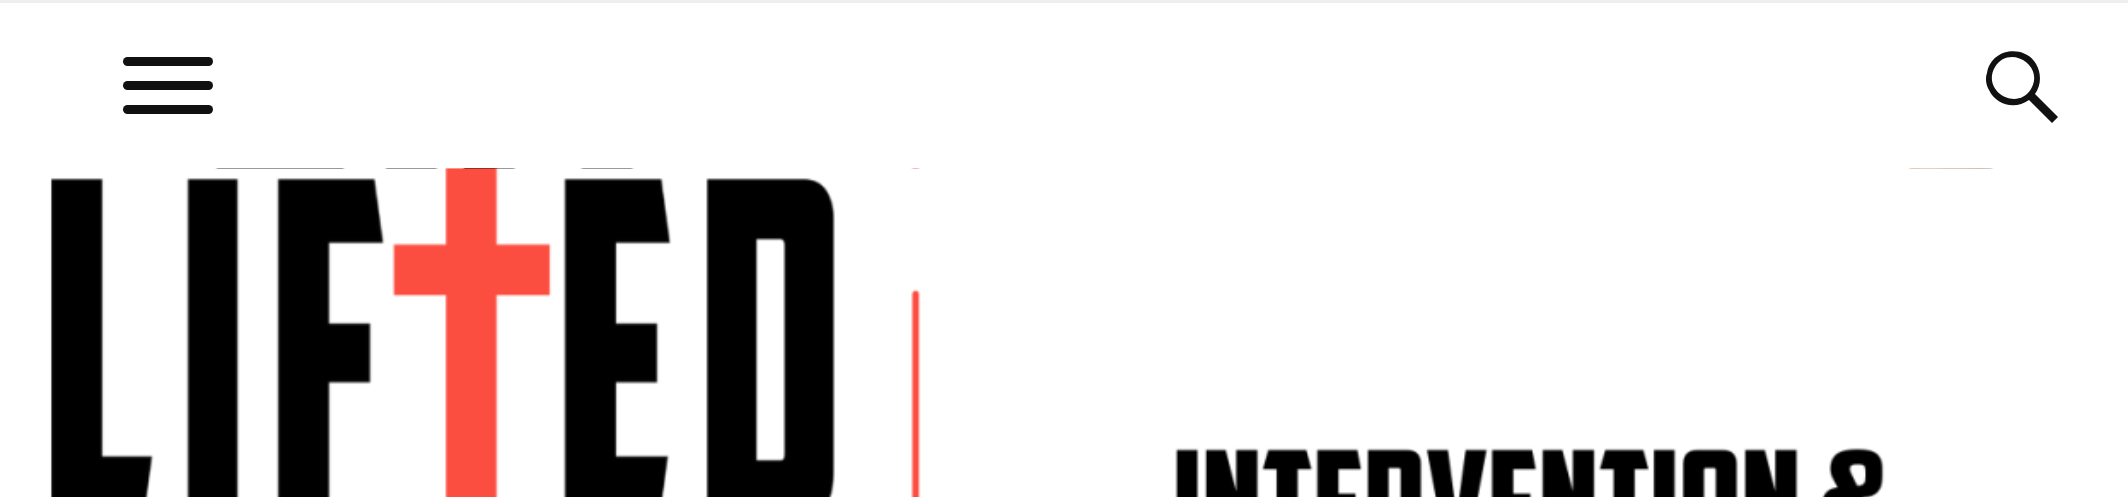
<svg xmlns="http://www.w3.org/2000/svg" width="2128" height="497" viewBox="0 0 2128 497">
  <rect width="100%" height="100%" fill="#ffffff"/>
  <rect x="0" y="0" width="2128" height="3" fill="#eeeeee"/>
  <rect x="123" y="57" width="90" height="9" rx="4.5" fill="#111111"/>
  <rect x="123" y="81" width="90" height="9" rx="4.5" fill="#111111"/>
  <rect x="123" y="105" width="90" height="9" rx="4.5" fill="#111111"/>
  <path d="M2058 117L2052 123L2029 100C2015 110 1996 105 1989 90C1986 85 1985 78 1987 73C1992 45 2032 44 2039 71C2041 79 2040 87 2035 94ZM1995 67C1981 91 2017 112 2031 89C2045 65 2009 44 1995 67Z" fill="#111111"/>
  <image x="0" y="168" width="2128" height="329" href="img1.png"/>
</svg>
